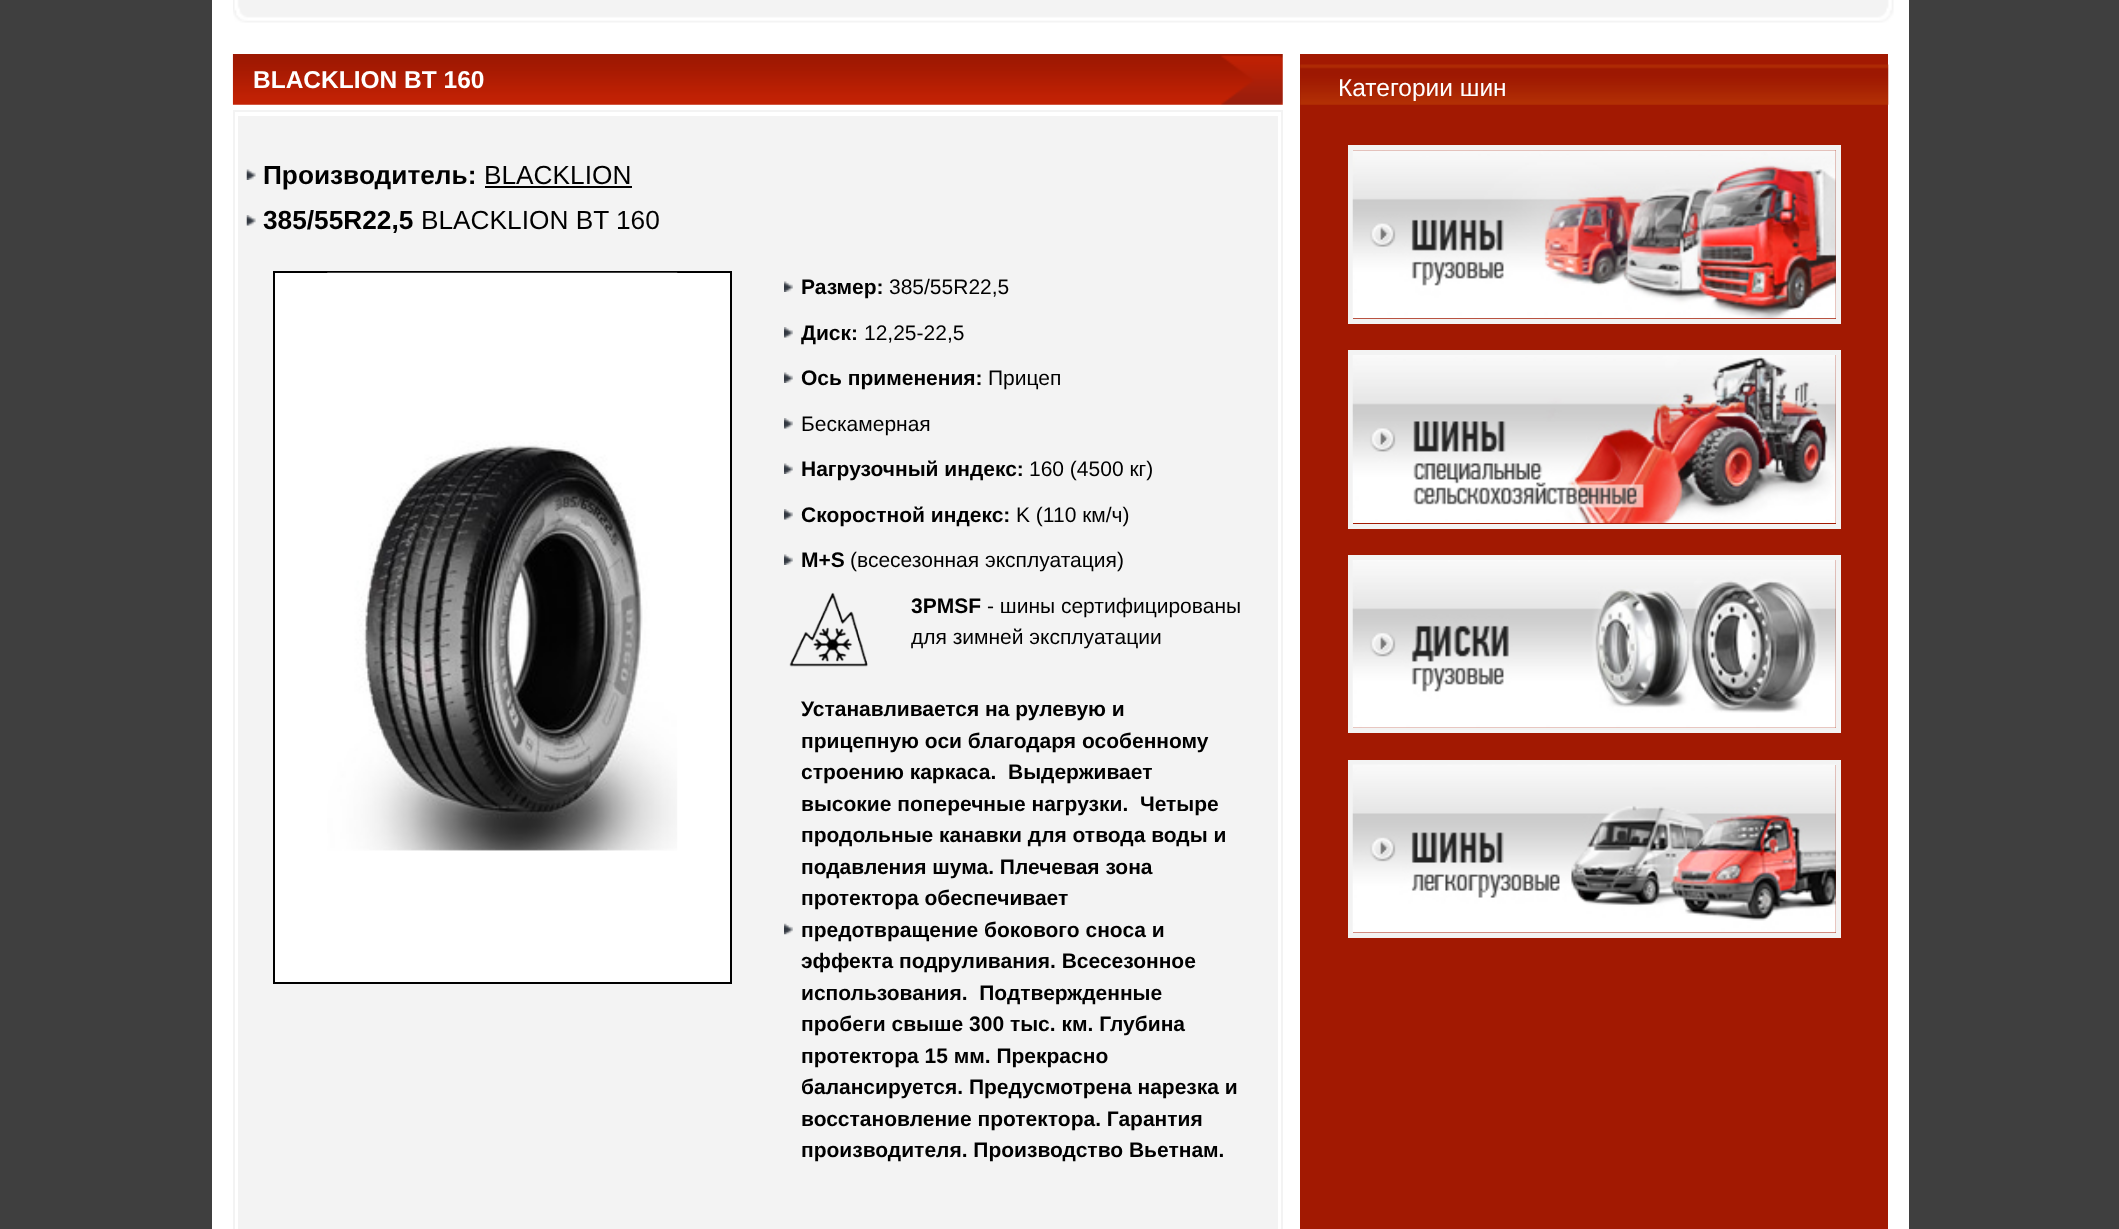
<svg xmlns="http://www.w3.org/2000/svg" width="2119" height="1229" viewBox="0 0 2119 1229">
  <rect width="100%" height="100%" fill="#3f3f3f"/>
  <rect x="212" y="0" width="1697" height="1229" fill="#ffffff"/>
  <image x="233" y="0" width="1661" height="23" href="img1.png"/>
  <rect x="1300" y="54" width="588" height="1175" fill="#a21902"/>
  <image x="232" y="54" width="1051" height="51" href="img2.png"/>
  <text x="253" y="88" font-family="Liberation Sans" font-size="24.5" font-weight="bold" fill="#ffffff">BLACKLION BT 160</text>
  <rect x="233" y="110" width="1050" height="2" fill="#f3f3f3"/>
  <rect x="1281" y="110" width="2" height="1119" fill="#f3f3f3"/>
  <rect x="233" y="110" width="2" height="1119" fill="#f3f3f3"/>
  <rect x="238" y="116" width="1040" height="1113" fill="#f3f3f3"/>
  <image x="246" y="169" width="10" height="11" href="img3.png"/>
  <text x="263" y="184" font-family="Liberation Sans" font-size="26.25" font-weight="bold" fill="#000000">Производитель:</text>
  <text x="484" y="184" font-family="Liberation Sans" font-size="26.25" fill="#000000">BLACKLION</text>
  <rect x="485" y="186" width="147" height="2" fill="#000000"/>
  <image x="246" y="215" width="10" height="11" href="img4.png"/>
  <text x="263" y="229" font-family="Liberation Sans" font-size="26.25" font-weight="bold" fill="#000000">385/55R22,5</text>
  <text x="421" y="229" font-family="Liberation Sans" font-size="26.25" fill="#000000">BLACKLION BT 160</text>
  <rect x="274" y="272" width="457" height="711" fill="none" stroke="#000000" stroke-width="2"/>
  <rect x="275" y="273" width="455" height="709" fill="#ffffff"/>
  <image x="327" y="272" width="351" height="579" href="img5.png"/>
  <image x="784" y="281" width="9" height="11" href="img6.png"/>
  <text x="801" y="294" font-family="Liberation Sans" font-size="21" font-weight="bold" fill="#000000">Размер:</text>
  <text x="889" y="294" font-family="Liberation Sans" font-size="21" fill="#000000">385/55R22,5</text>
  <image x="784" y="327" width="9" height="11" href="img7.png"/>
  <text x="801" y="340" font-family="Liberation Sans" font-size="21" font-weight="bold" fill="#000000">Диск:</text>
  <text x="864" y="340" font-family="Liberation Sans" font-size="21" fill="#000000">12,25-22,5</text>
  <image x="784" y="372" width="9" height="11" href="img6.png"/>
  <text x="801" y="385" font-family="Liberation Sans" font-size="21" font-weight="bold" fill="#000000">Ось применения:</text>
  <text x="988" y="385" font-family="Liberation Sans" font-size="21" fill="#000000">Прицеп</text>
  <image x="784" y="418" width="9" height="11" href="img7.png"/>
  <text x="801" y="431" font-family="Liberation Sans" font-size="21" fill="#000000">Бескамерная</text>
  <image x="784" y="463" width="9" height="11" href="img6.png"/>
  <text x="801" y="476" font-family="Liberation Sans" font-size="21" font-weight="bold" fill="#000000">Нагрузочный индекс:</text>
  <text x="1029" y="476" font-family="Liberation Sans" font-size="21" fill="#000000">160 (4500 кг)</text>
  <image x="784" y="509" width="9" height="11" href="img7.png"/>
  <text x="801" y="522" font-family="Liberation Sans" font-size="21" font-weight="bold" fill="#000000">Скоростной индекс:</text>
  <text x="1016" y="522" font-family="Liberation Sans" font-size="21" fill="#000000">K (110 км/ч)</text>
  <image x="784" y="554" width="9" height="11" href="img6.png"/>
  <text x="801" y="567" font-family="Liberation Sans" font-size="21" font-weight="bold" fill="#000000">M+S</text>
  <text x="850" y="567" font-family="Liberation Sans" font-size="21" fill="#000000">(всесезонная эксплуатация)</text>
  <image x="789" y="592" width="79" height="75" href="img8.png"/>
  <text x="911" y="613" font-family="Liberation Sans" font-size="21" font-weight="bold" fill="#000000">3PMSF</text>
  <text x="987" y="613" font-family="Liberation Sans" font-size="21" fill="#000000">- шины сертифицированы</text>
  <text x="911" y="644" font-family="Liberation Sans" font-size="21" fill="#000000">для зимней эксплуатации</text>
  <image x="784" y="923" width="9" height="12" href="img9.png"/>
  <text x="801" y="716" font-family="Liberation Sans" font-size="21" font-weight="bold" fill="#000000">Устанавливается на рулевую и</text>
  <text x="801" y="748" font-family="Liberation Sans" font-size="21" font-weight="bold" fill="#000000">прицепную оси благодаря особенному</text>
  <text x="801" y="779" font-family="Liberation Sans" font-size="21" font-weight="bold" fill="#000000" xml:space="preserve">строению каркаса.  Выдерживает</text>
  <text x="801" y="811" font-family="Liberation Sans" font-size="21" font-weight="bold" fill="#000000" xml:space="preserve">высокие поперечные нагрузки.  Четыре</text>
  <text x="801" y="842" font-family="Liberation Sans" font-size="21" font-weight="bold" fill="#000000">продольные канавки для отвода воды и</text>
  <text x="801" y="874" font-family="Liberation Sans" font-size="21" font-weight="bold" fill="#000000">подавления шума. Плечевая зона</text>
  <text x="801" y="905" font-family="Liberation Sans" font-size="21" font-weight="bold" fill="#000000">протектора обеспечивает</text>
  <text x="801" y="937" font-family="Liberation Sans" font-size="21" font-weight="bold" fill="#000000">предотвращение бокового сноса и</text>
  <text x="801" y="968" font-family="Liberation Sans" font-size="21" font-weight="bold" fill="#000000">эффекта подруливания. Всесезонное</text>
  <text x="801" y="1000" font-family="Liberation Sans" font-size="21" font-weight="bold" fill="#000000" xml:space="preserve">использования.  Подтвержденные</text>
  <text x="801" y="1031" font-family="Liberation Sans" font-size="21" font-weight="bold" fill="#000000">пробеги свыше 300 тыс. км. Глубина</text>
  <text x="801" y="1063" font-family="Liberation Sans" font-size="21" font-weight="bold" fill="#000000">протектора 15 мм. Прекрасно</text>
  <text x="801" y="1094" font-family="Liberation Sans" font-size="21" font-weight="bold" fill="#000000">балансируется. Предусмотрена нарезка и</text>
  <text x="801" y="1126" font-family="Liberation Sans" font-size="21" font-weight="bold" fill="#000000">восстановление протектора. Гарантия</text>
  <text x="801" y="1157" font-family="Liberation Sans" font-size="21" font-weight="bold" fill="#000000">производителя. Производство Вьетнам.</text>
  <image x="1300" y="64" width="589" height="41" href="img10.png"/>
  <text x="1338" y="96" font-family="Liberation Sans" font-size="24.5" fill="#ffffff">Категории шин</text>
  <rect x="1350.5" y="147.5" width="488" height="174" fill="none" stroke="#f3f3f3" stroke-width="5"/>
  <image x="1352" y="150" width="484" height="169" href="img11.png"/>
  <rect x="1350.5" y="352.5" width="488" height="174" fill="none" stroke="#f3f3f3" stroke-width="5"/>
  <image x="1352" y="355" width="484" height="168" href="img12.png"/>
  <rect x="1350.5" y="557.5" width="488" height="173" fill="none" stroke="#f3f3f3" stroke-width="5"/>
  <image x="1352" y="560" width="484" height="168" href="img13.png"/>
  <rect x="1350.5" y="762.5" width="488" height="173" fill="none" stroke="#f3f3f3" stroke-width="5"/>
  <image x="1352" y="764" width="484" height="169" href="img14.png"/>
</svg>
